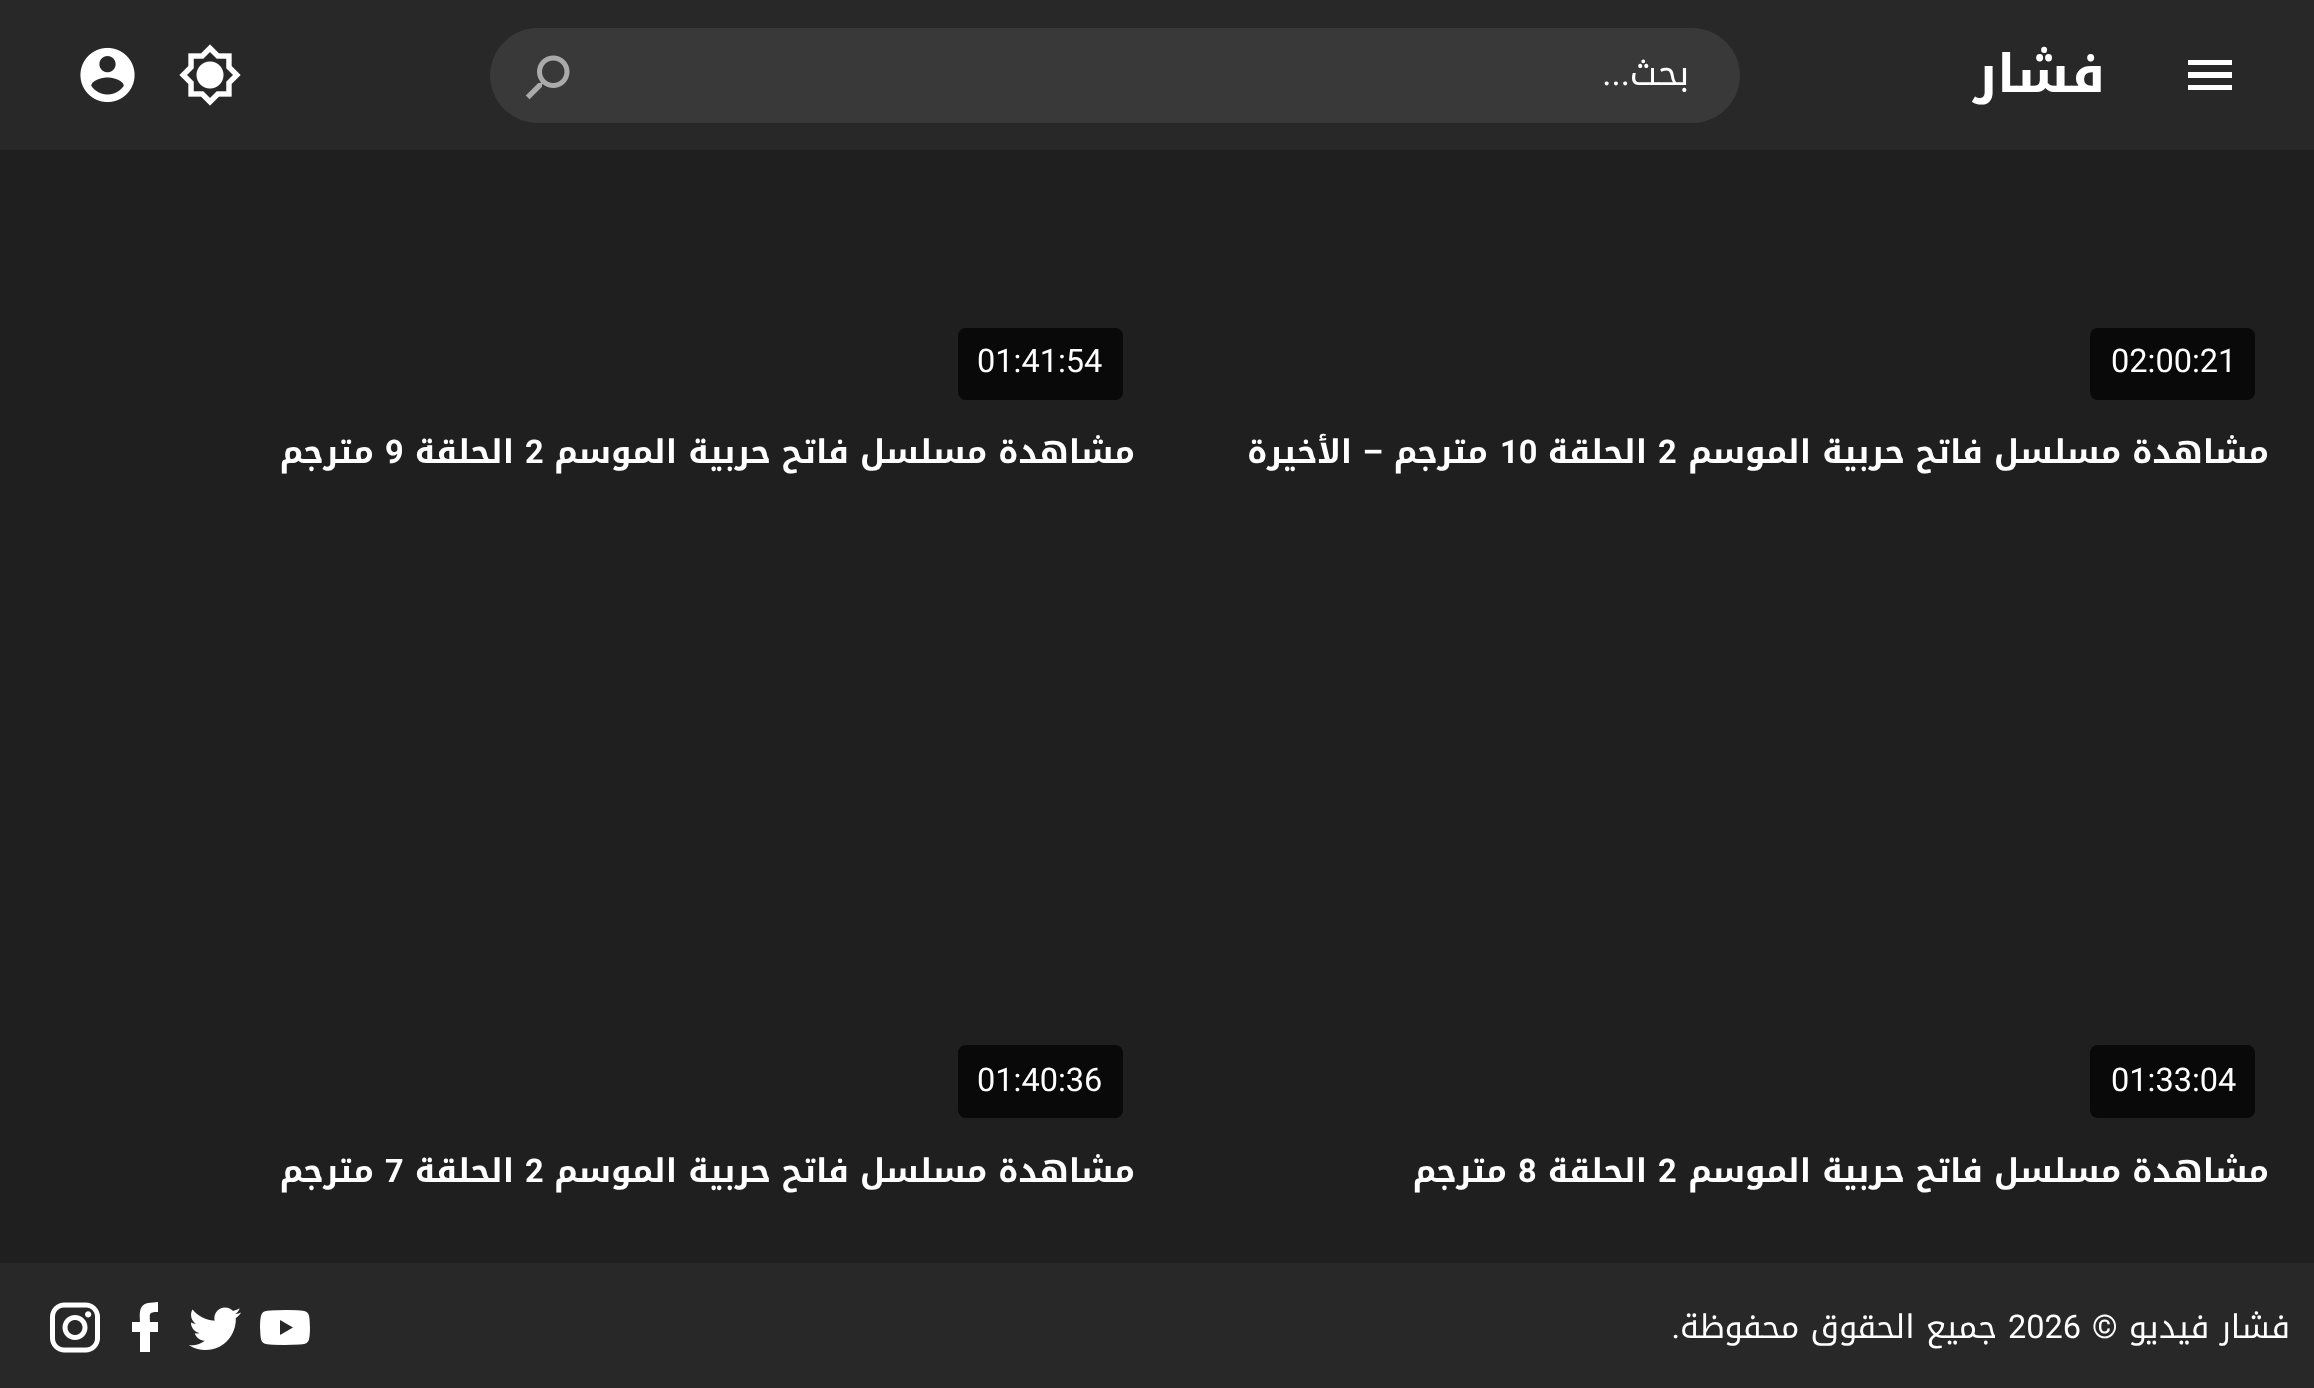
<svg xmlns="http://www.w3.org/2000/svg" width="2314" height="1388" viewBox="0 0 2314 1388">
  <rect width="100%" height="100%" fill="#1f1f1f"/>
  <rect x="0" y="0" width="2314" height="150" fill="#282828"/>
  <path d="M2188 60H2232V65H2188V60M2188 72H2232V78H2188V72M2188 85H2232V90H2188Z" fill="#ffffff"/>
  <text x="2105" y="92" font-family="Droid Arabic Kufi" font-size="52.5" font-weight="bold" direction="rtl" fill="#ffffff">فشار</text>
  <path d="M615 28H1692.5C1718.5 28 1740 49.5 1740 75.5C1740 101.5 1718.5 123 1692.5 123H615Z" fill="#393939"/>
  <text x="1689" y="85" font-family="Droid Arabic Kufi" font-size="35" direction="rtl" fill="#ffffff">بحث</text>
  <text x="1630" y="85" font-family="Roboto" font-size="35" direction="rtl" fill="#ffffff">...</text>
  <path d="M537.5 28H615V123H537.5C511.5 123 490 101.5 490 75.5C490 49.5 511.5 28 537.5 28Z" fill="#393939"/>
  <image x="525" y="55" width="45" height="45" href="img1.png"/>
  <image x="179" y="44" width="62" height="62" href="img2.png"/>
  <image x="80" y="47" width="55" height="56" href="img3.png"/>
  <rect x="2090" y="328" width="165" height="72" rx="8" fill="#090909"/>
  <text x="2111" y="372" font-family="Roboto" font-size="32.5" fill="#ffffff">02:00:21</text>
  <text x="2269" y="463" font-family="Droid Arabic Kufi" font-size="32.5" font-weight="bold" direction="rtl" fill="#ffffff">مشاهدة مسلسل فاتح حربية الموسم</text>
  <text x="1658" y="463" font-family="Roboto" font-size="32.5" font-weight="bold" fill="#ffffff">2</text>
  <text x="1647" y="463" font-family="Droid Arabic Kufi" font-size="32.5" font-weight="bold" direction="rtl" fill="#ffffff">الحلقة</text>
  <text x="1500" y="463" font-family="Roboto" font-size="32.5" font-weight="bold" fill="#ffffff">10</text>
  <text x="1488" y="463" font-family="Droid Arabic Kufi" font-size="32.5" font-weight="bold" direction="rtl" fill="#ffffff">مترجم</text>
  <text x="1383" y="463" font-family="Roboto" font-size="32.5" font-weight="bold" direction="rtl" fill="#ffffff">–</text>
  <text x="1352" y="463" font-family="Droid Arabic Kufi" font-size="32.5" font-weight="bold" direction="rtl" fill="#ffffff">الأخيرة</text>
  <rect x="958" y="328" width="165" height="72" rx="8" fill="#090909"/>
  <text x="977" y="372" font-family="Roboto" font-size="32.5" fill="#ffffff">01:41:54</text>
  <text x="1135" y="463" font-family="Droid Arabic Kufi" font-size="32.5" font-weight="bold" direction="rtl" fill="#ffffff">مشاهدة مسلسل فاتح حربية الموسم</text>
  <text x="525" y="463" font-family="Roboto" font-size="32.5" font-weight="bold" fill="#ffffff">2</text>
  <text x="514" y="463" font-family="Droid Arabic Kufi" font-size="32.5" font-weight="bold" direction="rtl" fill="#ffffff">الحلقة</text>
  <text x="385" y="463" font-family="Roboto" font-size="32.5" font-weight="bold" fill="#ffffff">9</text>
  <text x="374" y="463" font-family="Droid Arabic Kufi" font-size="32.5" font-weight="bold" direction="rtl" fill="#ffffff">مترجم</text>
  <rect x="2090" y="1045" width="165" height="73" rx="8" fill="#090909"/>
  <text x="2111" y="1091" font-family="Roboto" font-size="32.5" fill="#ffffff">01:33:04</text>
  <text x="2269" y="1182" font-family="Droid Arabic Kufi" font-size="32.5" font-weight="bold" direction="rtl" fill="#ffffff">مشاهدة مسلسل فاتح حربية الموسم</text>
  <text x="1658" y="1182" font-family="Roboto" font-size="32.5" font-weight="bold" fill="#ffffff">2</text>
  <text x="1647" y="1182" font-family="Droid Arabic Kufi" font-size="32.5" font-weight="bold" direction="rtl" fill="#ffffff">الحلقة</text>
  <text x="1518" y="1182" font-family="Roboto" font-size="32.5" font-weight="bold" fill="#ffffff">8</text>
  <text x="1507" y="1182" font-family="Droid Arabic Kufi" font-size="32.5" font-weight="bold" direction="rtl" fill="#ffffff">مترجم</text>
  <rect x="958" y="1045" width="165" height="73" rx="8" fill="#090909"/>
  <text x="977" y="1091" font-family="Roboto" font-size="32.5" fill="#ffffff">01:40:36</text>
  <text x="1135" y="1182" font-family="Droid Arabic Kufi" font-size="32.5" font-weight="bold" direction="rtl" fill="#ffffff">مشاهدة مسلسل فاتح حربية الموسم</text>
  <text x="525" y="1182" font-family="Roboto" font-size="32.5" font-weight="bold" fill="#ffffff">2</text>
  <text x="514" y="1182" font-family="Droid Arabic Kufi" font-size="32.5" font-weight="bold" direction="rtl" fill="#ffffff">الحلقة</text>
  <text x="385" y="1182" font-family="Roboto" font-size="32.5" font-weight="bold" fill="#ffffff">7</text>
  <text x="374" y="1182" font-family="Droid Arabic Kufi" font-size="32.5" font-weight="bold" direction="rtl" fill="#ffffff">مترجم</text>
  <rect x="0" y="1263" width="2314" height="125" fill="#282828"/>
  <text x="2290" y="1338" font-family="Droid Arabic Kufi" font-size="32.5" direction="rtl" fill="#ffffff">فشار فيديو</text>
  <text x="2092" y="1338" font-family="Roboto" font-size="32.5" fill="#ffffff">©</text>
  <text x="2008" y="1338" font-family="Roboto" font-size="32.5" fill="#ffffff">2026</text>
  <text x="1997" y="1338" font-family="Droid Arabic Kufi" font-size="32.5" direction="rtl" fill="#ffffff">جميع الحقوق محفوظة</text>
  <text x="1680" y="1338" font-family="Roboto" font-size="32.5" direction="rtl" fill="#ffffff">.</text>
  <image x="260" y="1310" width="50" height="35" href="img4.png"/>
  <image x="189" y="1307" width="52" height="43" href="img5.png"/>
  <path d="M158 1302V1312C148 1312 150 1314 150 1322H158V1332H150V1352H140V1332H132V1322H140C140 1315 138 1305 148 1303Z" fill="#ffffff"/>
  <image x="50" y="1302" width="50" height="51" href="img6.png"/>
</svg>
